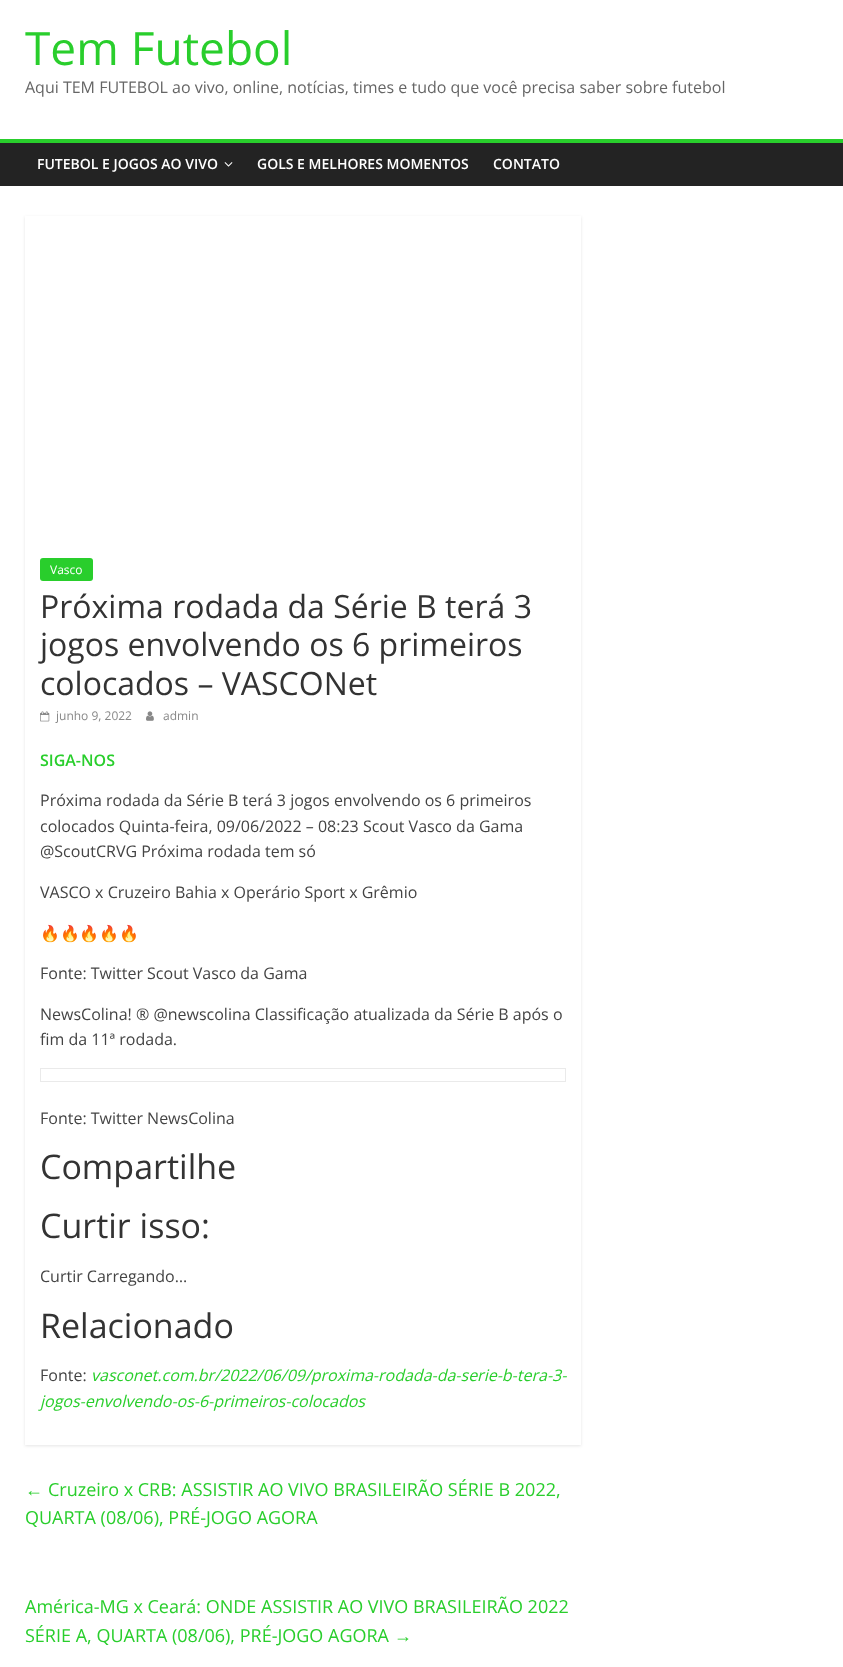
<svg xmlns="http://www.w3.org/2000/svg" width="843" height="1667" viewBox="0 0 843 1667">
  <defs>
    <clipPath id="clip1"><path d="M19 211H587V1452H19ZM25 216H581V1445H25Z" clip-rule="evenodd"/></clipPath>
    <filter id="blur1" x="-50%" y="-200%" width="200%" height="500%"><feGaussianBlur stdDeviation="1.5"/></filter>
  </defs>
  <rect width="100%" height="100%" fill="#ffffff"/>
  <text x="25" y="65" font-family="Open Sans" font-size="46" fill="#29ce2c">Tem Futebol</text>
  <text x="25" y="93" font-family="Open Sans" font-size="16" fill="#666666">Aqui TEM FUTEBOL ao vivo, online, notícias, times e tudo que você precisa saber sobre futebol</text>
  <rect x="0" y="143" width="843" height="43" fill="#232323"/>
  <rect x="0" y="139" width="843" height="4" fill="#29ce2c"/>
  <text x="37" y="169" font-family="Open Sans" font-size="14" font-weight="600" fill="#ffffff">FUTEBOL E JOGOS AO VIVO</text>
  <image x="224" y="162" width="9" height="5" href="img1.png"/>
  <text x="257" y="169" font-family="Open Sans" font-size="14" font-weight="600" fill="#ffffff">GOLS E MELHORES MOMENTOS</text>
  <text x="493" y="169" font-family="Open Sans" font-size="14" font-weight="600" fill="#ffffff">CONTATO</text>
  <g clip-path="url(#clip1)">
    <rect x="25" y="217" width="556" height="1229" fill="#000000" fill-opacity="0.1" filter="url(#blur1)"/>
  </g>
  <rect x="40" y="558" width="53" height="23" rx="3" fill="#29ce2c"/>
  <text x="50" y="574" font-family="Open Sans" font-size="12" fill="#ffffff">Vasco</text>
  <text x="40" y="618" font-family="Open Sans" font-size="32" fill="#333333">Próxima rodada da Série B terá 3</text>
  <text x="40" y="656" font-family="Open Sans" font-size="32" fill="#333333">jogos envolvendo os 6 primeiros</text>
  <text x="40" y="695" font-family="Open Sans" font-size="32" fill="#333333">colocados – VASCONet</text>
  <image x="40" y="711" width="10" height="11" href="img2.png"/>
  <text x="56" y="720" font-family="Open Sans" font-size="12" fill="#888888">junho 9, 2022</text>
  <image x="146" y="711" width="8" height="10" href="img3.png"/>
  <text x="163" y="720" font-family="Open Sans" font-size="12" fill="#888888">admin</text>
  <text x="40" y="766" font-family="Open Sans" font-size="16" font-weight="600" fill="#29ce2c">SIGA-NOS</text>
  <text x="40" y="806" font-family="Open Sans" font-size="16" fill="#444444">Próxima rodada da Série B terá 3 jogos envolvendo os 6 primeiros</text>
  <text x="40" y="832" font-family="Open Sans" font-size="16" fill="#444444">colocados Quinta-feira, 09/06/2022 – 08:23 Scout Vasco da Gama</text>
  <text x="40" y="857" font-family="Open Sans" font-size="16" fill="#444444">@ScoutCRVG Próxima rodada tem só</text>
  <text x="40" y="898" font-family="Open Sans" font-size="16" fill="#444444">VASCO x Cruzeiro Bahia x Operário Sport x Grêmio</text>
  <text x="40" y="939" font-family="Noto Color Emoji" font-size="16" fill="#444444">🔥🔥🔥🔥🔥</text>
  <text x="40" y="979" font-family="Open Sans" font-size="16" fill="#444444">Fonte: Twitter Scout Vasco da Gama</text>
  <text x="40" y="1020" font-family="Open Sans" font-size="16" fill="#444444">NewsColina! ® @newscolina Classificação atualizada da Série B após o</text>
  <text x="40" y="1045" font-family="Open Sans" font-size="16" fill="#444444">fim da 11ª rodada.</text>
  <rect x="40" y="1068" width="526" height="1" fill="#eaeaea"/>
  <rect x="565" y="1068" width="1" height="14" fill="#eaeaea"/>
  <rect x="40" y="1081" width="526" height="1" fill="#eaeaea"/>
  <rect x="40" y="1068" width="1" height="14" fill="#eaeaea"/>
  <text x="40" y="1124" font-family="Open Sans" font-size="16" fill="#444444">Fonte: Twitter NewsColina</text>
  <text x="40" y="1179" font-family="Open Sans" font-size="34" fill="#333333">Compartilhe</text>
  <text x="40" y="1238" font-family="Open Sans" font-size="34" fill="#333333">Curtir isso:</text>
  <text x="40" y="1282" font-family="Open Sans" font-size="16" fill="#444444">Curtir Carregando…</text>
  <text x="40" y="1338" font-family="Open Sans" font-size="34" fill="#333333">Relacionado</text>
  <text x="40" y="1381" font-family="Open Sans" font-size="16" fill="#444444">Fonte:</text>
  <text x="91" y="1381" font-family="Open Sans" font-size="16" font-style="italic" fill="#29ce2c">vasconet.com.br/2022/06/09/proxima-rodada-da-serie-b-tera-3-</text>
  <text x="40" y="1407" font-family="Open Sans" font-size="16" font-style="italic" fill="#29ce2c">jogos-envolvendo-os-6-primeiros-colocados</text>
  <text x="25" y="1496" font-family="Liberation Serif" font-size="18" fill="#29ce2c">←</text>
  <text x="48" y="1496" font-family="Open Sans" font-size="18" fill="#29ce2c">Cruzeiro x CRB: ASSISTIR AO VIVO BRASILEIRÃO SÉRIE B 2022,</text>
  <text x="25" y="1524" font-family="Open Sans" font-size="18" fill="#29ce2c">QUARTA (08/06), PRÉ-JOGO AGORA</text>
  <text x="25" y="1613" font-family="Open Sans" font-size="18" fill="#29ce2c">América-MG x Ceará: ONDE ASSISTIR AO VIVO BRASILEIRÃO 2022</text>
  <text x="25" y="1642" font-family="Open Sans" font-size="18" fill="#29ce2c">SÉRIE A, QUARTA (08/06), PRÉ-JOGO AGORA</text>
  <text x="394" y="1642" font-family="Liberation Serif" font-size="18" fill="#29ce2c">→</text>
</svg>
